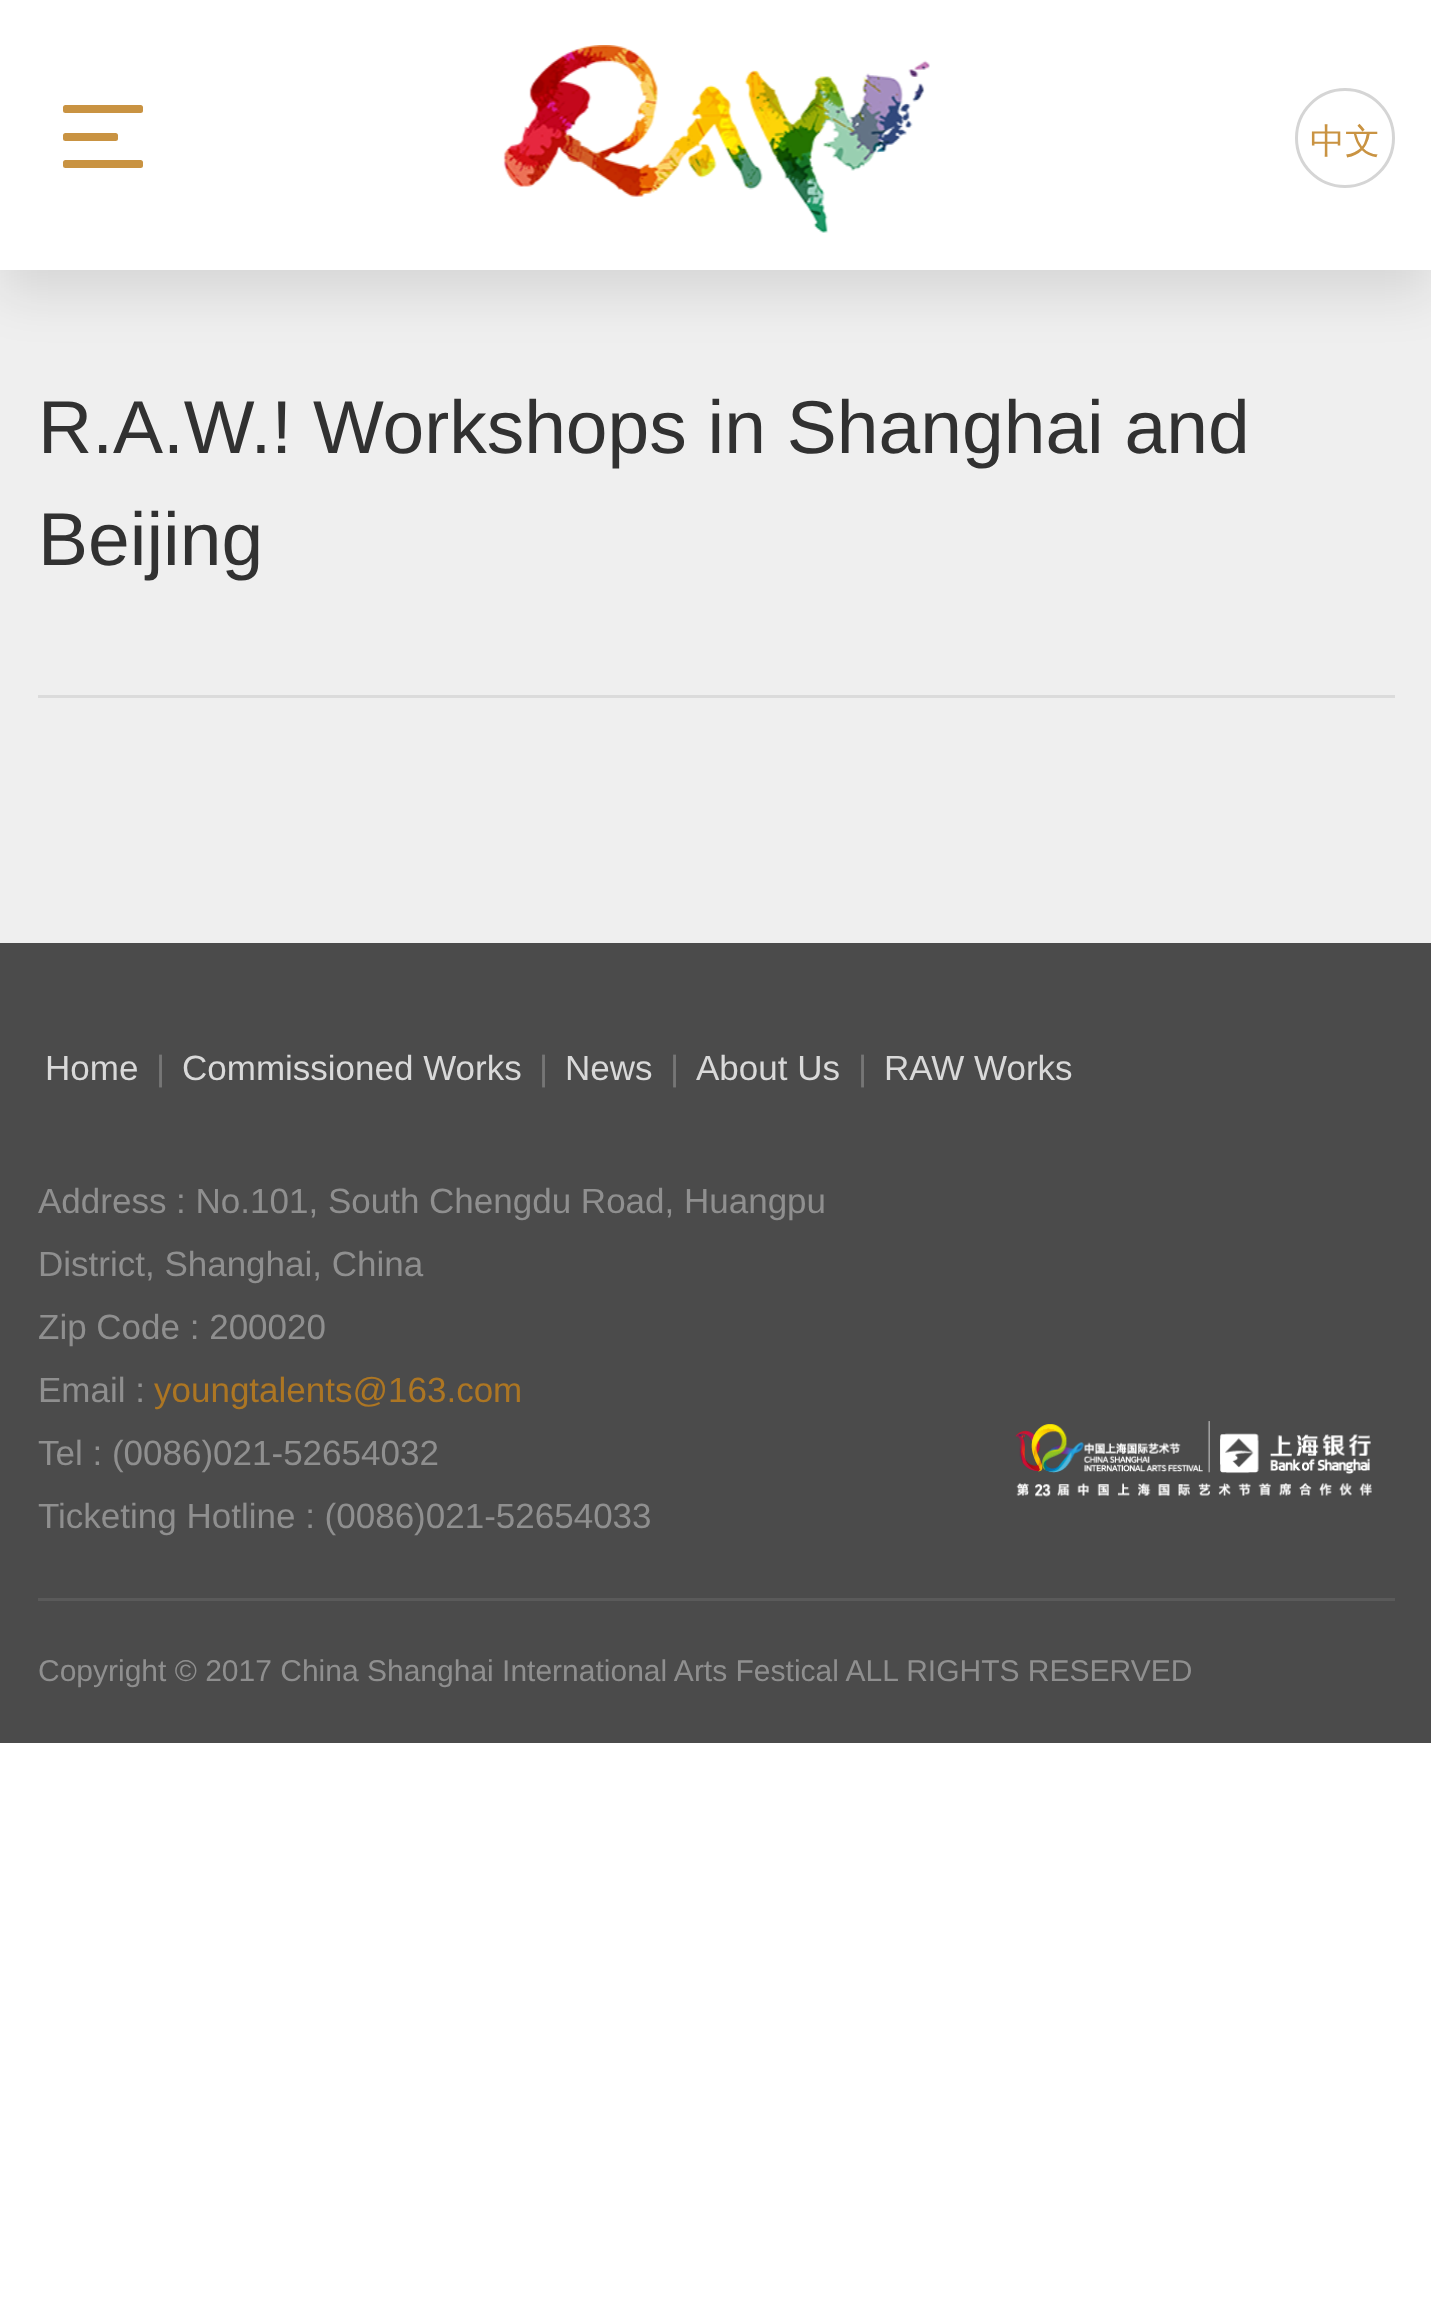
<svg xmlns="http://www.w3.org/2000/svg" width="1431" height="2309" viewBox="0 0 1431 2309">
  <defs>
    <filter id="blur1" x="-50%" y="-200%" width="200%" height="500%"><feGaussianBlur stdDeviation="25"/></filter>
  </defs>
  <rect width="100%" height="100%" fill="#ffffff"/>
  <rect x="0" y="270" width="1431" height="673" fill="#efefef"/>
  <rect x="0" y="25" width="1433" height="270" fill="#000000" fill-opacity="0.1" filter="url(#blur1)"/>
  <rect x="0" y="0" width="1431" height="270" fill="#ffffff"/>
  <rect x="63" y="105" width="80" height="8" rx="2.5" fill="#c99342"/>
  <rect x="63" y="133" width="55" height="8" rx="2.5" fill="#c99342"/>
  <rect x="63" y="160" width="80" height="8" rx="2.5" fill="#c99342"/>
  <image x="503" y="45" width="427" height="188" href="img1.png"/>
  <circle cx="1345" cy="138" r="48.5" fill="none" stroke="#d5d5d5" stroke-width="3"/>
  <text x="1310" y="153" font-family="WenQuanYi Zen Hei" font-size="35" font-weight="500" fill="#c99342">中文</text>
  <rect x="38" y="695" width="1357" height="3" fill="#dbdbdb"/>
  <text x="38" y="453" font-family="Liberation Sans" font-size="75" fill="#313131">R.A.W.! Workshops in Shanghai and</text>
  <text x="38" y="565" font-family="Liberation Sans" font-size="75" fill="#313131">Beijing</text>
  <rect x="0" y="943" width="1431" height="800" fill="#4b4b4b"/>
  <text x="45" y="1080" font-family="Liberation Sans" font-size="35" fill="#d9d9d9">Home</text>
  <text x="156" y="1080" font-family="Liberation Sans" font-size="35" fill="#767676">|</text>
  <text x="182" y="1080" font-family="Liberation Sans" font-size="35" fill="#d9d9d9">Commissioned Works</text>
  <text x="539" y="1080" font-family="Liberation Sans" font-size="35" fill="#767676">|</text>
  <text x="565" y="1080" font-family="Liberation Sans" font-size="35" fill="#d9d9d9">News</text>
  <text x="670" y="1080" font-family="Liberation Sans" font-size="35" fill="#767676">|</text>
  <text x="696" y="1080" font-family="Liberation Sans" font-size="35" fill="#d9d9d9">About Us</text>
  <text x="858" y="1080" font-family="Liberation Sans" font-size="35" fill="#767676">|</text>
  <text x="884" y="1080" font-family="Liberation Sans" font-size="35" fill="#d9d9d9">RAW Works</text>
  <text x="38" y="1213" font-family="Liberation Sans" font-size="35" fill="#8f8f8f">Address : No.101, South Chengdu Road, Huangpu</text>
  <text x="38" y="1276" font-family="Liberation Sans" font-size="35" fill="#8f8f8f">District, Shanghai, China</text>
  <text x="38" y="1339" font-family="Liberation Sans" font-size="35" fill="#8f8f8f">Zip Code : 200020</text>
  <text x="38" y="1402" font-family="Liberation Sans" font-size="35" fill="#8f8f8f">Email :</text>
  <text x="154" y="1402" font-family="Liberation Sans" font-size="35" fill="#ad7623">youngtalents@163.com</text>
  <text x="38" y="1465" font-family="Liberation Sans" font-size="35" fill="#8f8f8f">Tel : (0086)021-52654032</text>
  <text x="38" y="1528" font-family="Liberation Sans" font-size="35" fill="#8f8f8f">Ticketing Hotline : (0086)021-52654033</text>
  <image x="1015" y="1421" width="357" height="76" href="img2.png"/>
  <rect x="38" y="1598" width="1357" height="3" fill="#5a5a5a"/>
  <text x="38" y="1681" font-family="Liberation Sans" font-size="30" fill="#8f8f8f">Copyright © 2017 China Shanghai International Arts Festical ALL RIGHTS RESERVED</text>
</svg>
